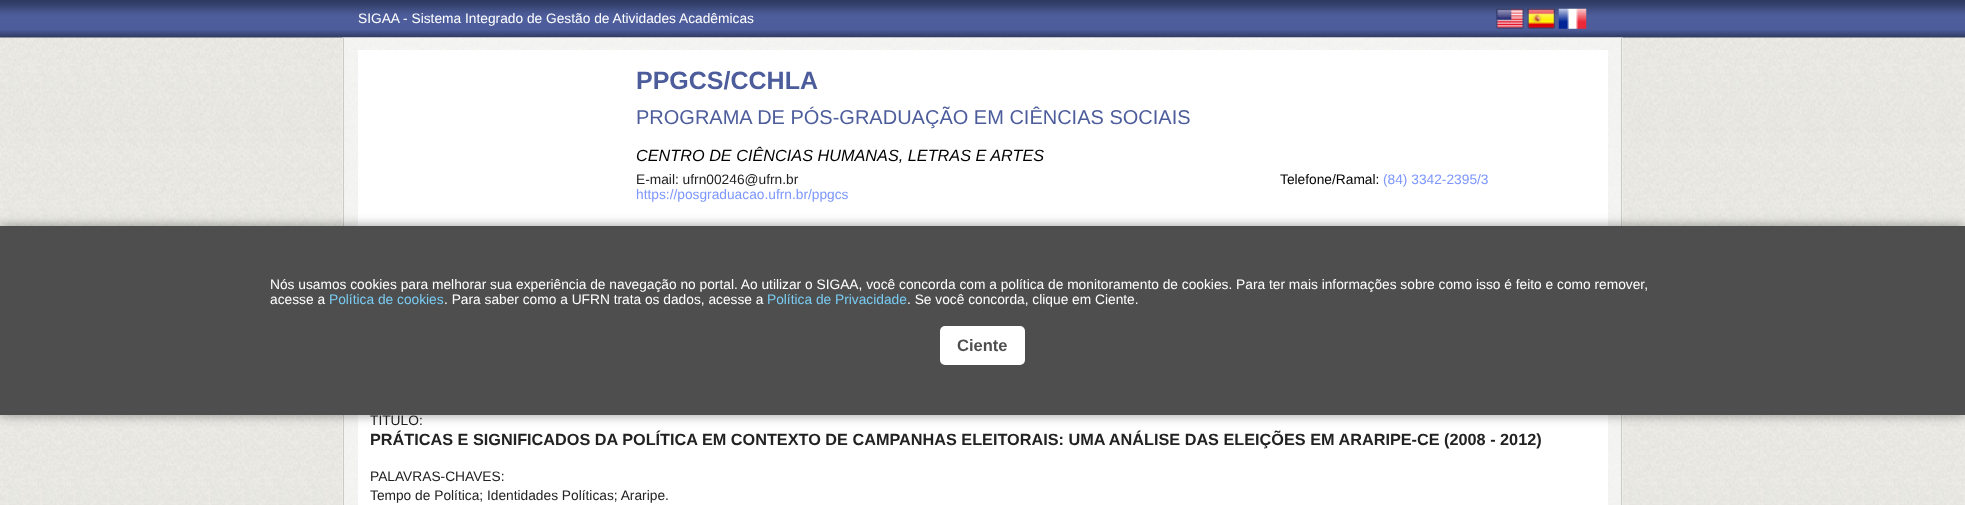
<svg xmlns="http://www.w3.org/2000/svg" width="1965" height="505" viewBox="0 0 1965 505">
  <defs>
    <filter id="blur1" x="-50%" y="-200%" width="200%" height="500%"><feGaussianBlur stdDeviation="6"/></filter>
  </defs>
  <rect width="100%" height="100%" fill="#ffffff"/>
  <image x="0" y="37" width="1965" height="468" href="img1.png"/>
  <image x="0" y="0" width="1965" height="38" href="img2.png"/>
  <text x="358" y="23" font-family="Liberation Sans" font-size="13.75" fill="#ffffff">SIGAA - Sistema Integrado de Gestão de Atividades Acadêmicas</text>
  <image x="1496" y="8" width="28" height="21" href="img3.png"/>
  <image x="1527" y="8" width="28" height="21" href="img4.png"/>
  <image x="1558" y="8" width="29" height="21" href="img5.png"/>
  <image x="342" y="37" width="1281" height="468" href="img6.png"/>
  <rect x="1621" y="38" width="1" height="467" fill="#cacac7"/>
  <rect x="343" y="38" width="1" height="467" fill="#cacac7"/>
  <rect x="358" y="50" width="1250" height="455" fill="#ffffff"/>
  <text x="636" y="89" font-family="Liberation Sans" font-size="25" font-weight="bold" fill="#4d5d9c">PPGCS/CCHLA</text>
  <text x="636" y="124" font-family="Liberation Sans" font-size="20" fill="#4d5d9c">PROGRAMA DE PÓS-GRADUAÇÃO EM CIÊNCIAS SOCIAIS</text>
  <text x="636" y="161" font-family="Liberation Sans" font-size="16.25" font-style="italic" fill="#000000">CENTRO DE CIÊNCIAS HUMANAS, LETRAS E ARTES</text>
  <text x="636" y="184" font-family="Liberation Sans" font-size="13.75" fill="#222222">E-mail: ufrn00246@ufrn.br</text>
  <text x="1280" y="184" font-family="Liberation Sans" font-size="13.75" fill="#000000">Telefone/Ramal:</text>
  <text x="1383" y="184" font-family="Liberation Sans" font-size="13.75" fill="#7d97fe">(84) 3342-2395/3</text>
  <text x="636" y="199" font-family="Liberation Sans" font-size="13.75" fill="#7d97fe">https://posgraduacao.ufrn.br/ppgcs</text>
  <text x="370" y="425" font-family="Liberation Sans" font-size="13.75" fill="#222222">TÍTULO:</text>
  <text x="370" y="445" font-family="Liberation Sans" font-size="16.25" font-weight="bold" fill="#222222">PRÁTICAS E SIGNIFICADOS DA POLÍTICA EM CONTEXTO DE CAMPANHAS ELEITORAIS: UMA ANÁLISE DAS ELEIÇÕES EM ARARIPE-CE (2008 - 2012)</text>
  <text x="370" y="481" font-family="Liberation Sans" font-size="13.75" fill="#222222">PALAVRAS-CHAVES:</text>
  <text x="370" y="500" font-family="Liberation Sans" font-size="13.75" fill="#222222">Tempo de Política; Identidades Políticas; Araripe.</text>
  <rect x="0" y="226" width="1965" height="189" fill="#000000" fill-opacity="0.4" filter="url(#blur1)"/>
  <rect x="0" y="226" width="1965" height="189" fill="#4e4e4e"/>
  <text x="270" y="289" font-family="Liberation Sans" font-size="13.75" fill="#ffffff">Nós usamos cookies para melhorar sua experiência de navegação no portal. Ao utilizar o SIGAA, você concorda com a política de monitoramento de cookies. Para ter mais informações sobre como isso é feito e como remover,</text>
  <text x="270" y="304" font-family="Liberation Sans" font-size="13.75" fill="#ffffff">acesse a</text>
  <text x="329" y="304" font-family="Liberation Sans" font-size="13.75" fill="#79cbf2">Política de cookies</text>
  <text x="444" y="304" font-family="Liberation Sans" font-size="13.75" fill="#ffffff">. Para saber como a UFRN trata os dados, acesse a</text>
  <text x="767" y="304" font-family="Liberation Sans" font-size="13.75" fill="#79cbf2">Política de Privacidade</text>
  <text x="907" y="304" font-family="Liberation Sans" font-size="13.75" fill="#ffffff">. Se você concorda, clique em Ciente.</text>
  <rect x="940" y="326" width="85" height="39" rx="5" fill="#ffffff"/>
  <text x="957" y="351" font-family="Liberation Sans" font-size="16.5" font-weight="bold" fill="#4e4e4e">Ciente</text>
</svg>
